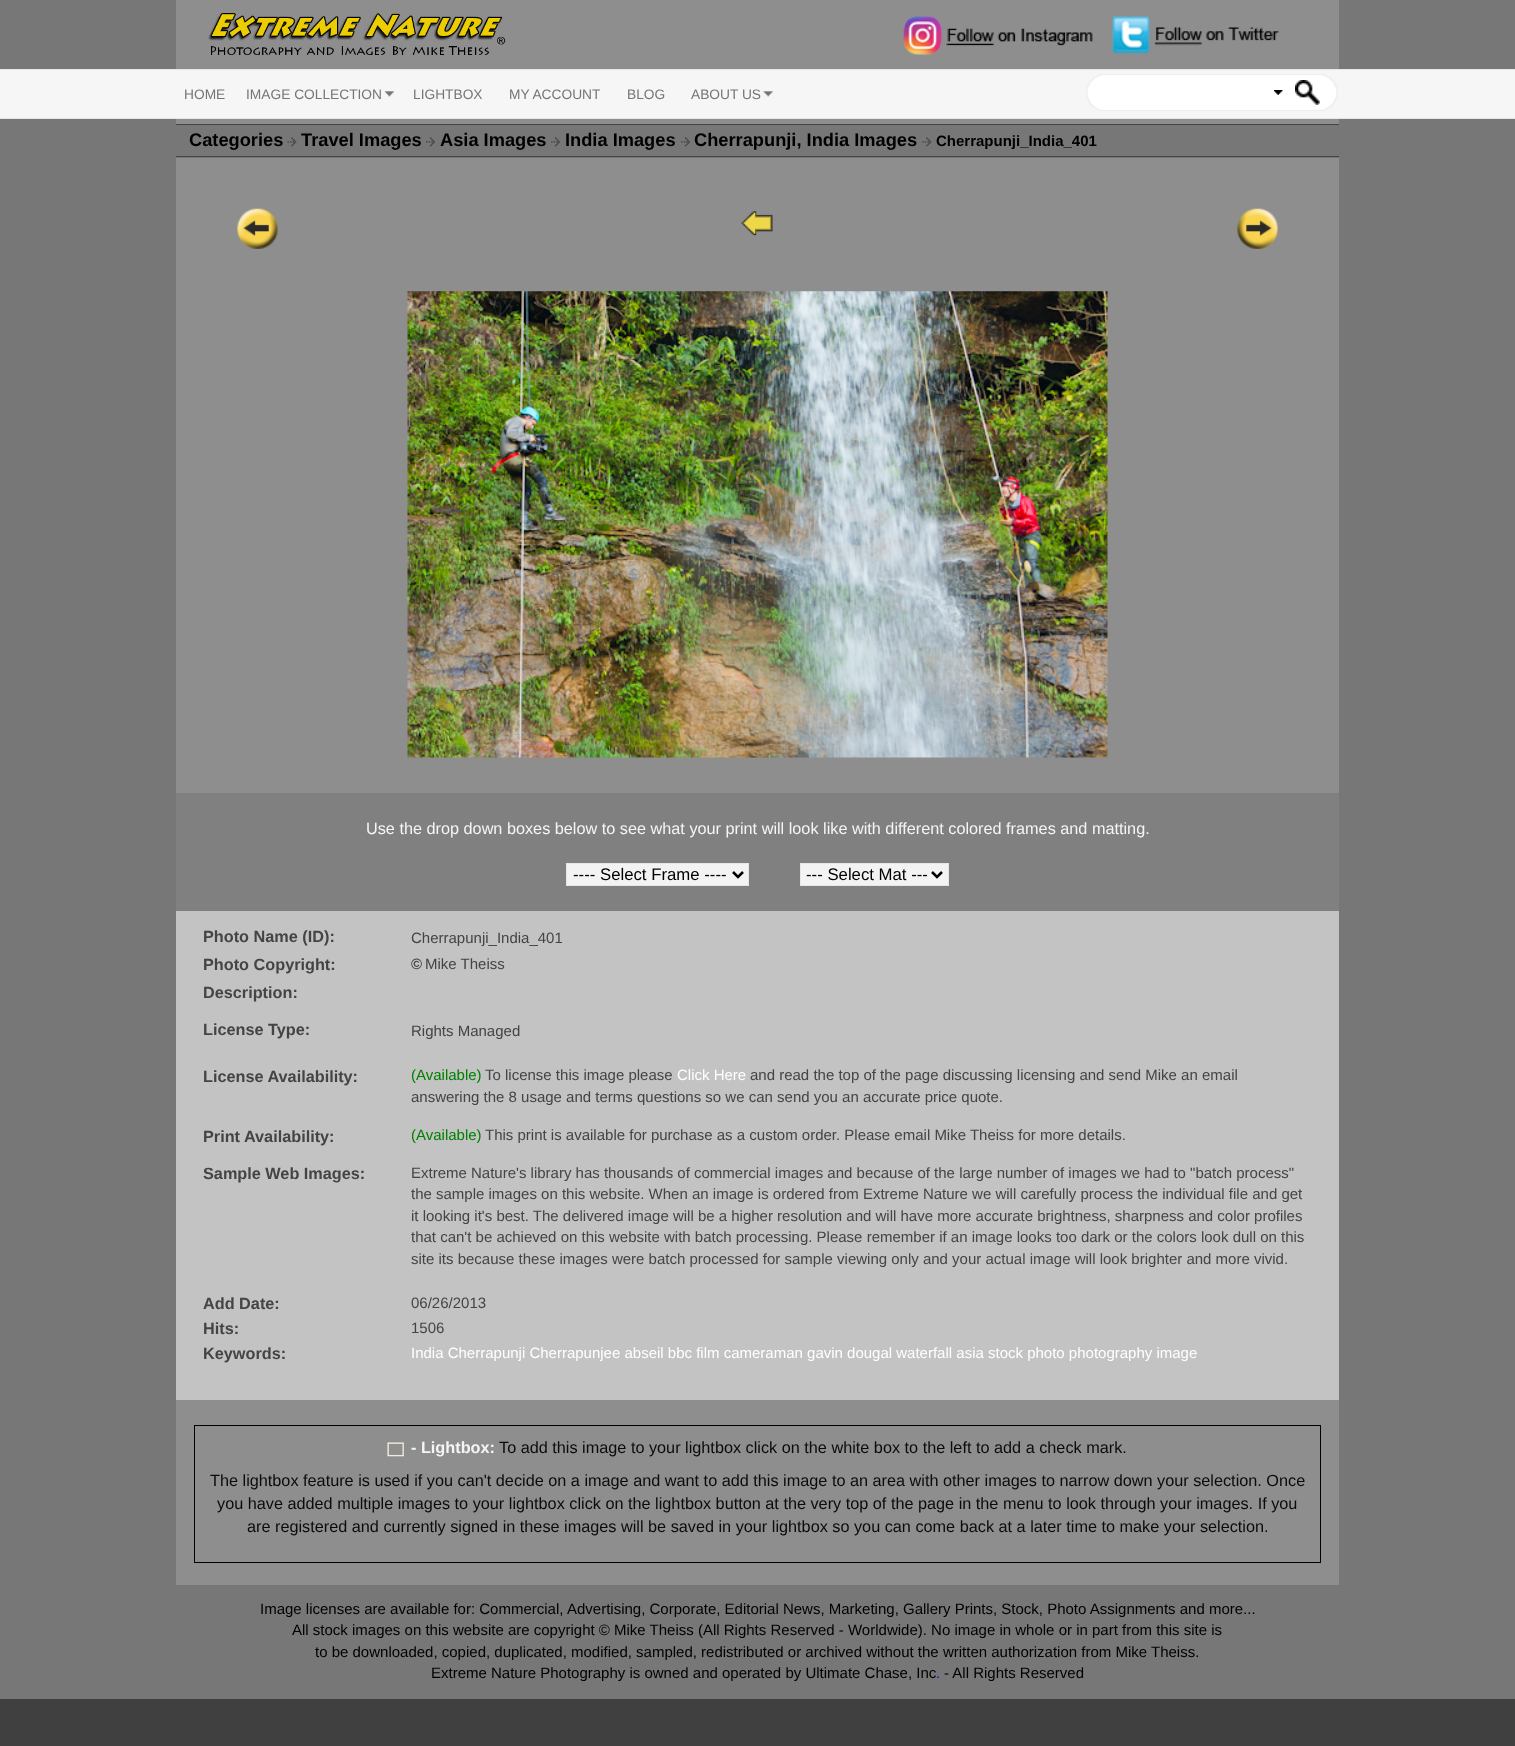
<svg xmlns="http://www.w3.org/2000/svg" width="1515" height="1746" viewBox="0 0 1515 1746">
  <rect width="100%" height="100%" fill="#404040"/>
  <rect x="0" y="0" width="1515" height="69" fill="#777777"/>
  <rect x="176" y="0" width="1163" height="69" fill="#8e8e8e"/>
  <image x="208" y="13" width="298" height="42" href="img1.png"/>
  <image x="903" y="16" width="190" height="39" href="img2.png"/>
  <image x="1112" y="16" width="167" height="38" href="img3.png"/>
  <rect x="0" y="70" width="1515" height="48" fill="#f6f6f6"/>
  <rect x="0" y="69" width="1515" height="1" fill="#e6e6e6"/>
  <rect x="0" y="118" width="1515" height="1" fill="#e6e6e6"/>
  <text x="184" y="99" font-family="Liberation Sans" font-size="13.75" fill="#757575">HOME</text>
  <image x="384" y="91" width="10" height="6" href="img4.png"/>
  <text x="246" y="99" font-family="Liberation Sans" font-size="13.75" fill="#757575">IMAGE COLLECTION</text>
  <text x="413" y="99" font-family="Liberation Sans" font-size="13.75" fill="#757575">LIGHTBOX</text>
  <text x="509" y="99" font-family="Liberation Sans" font-size="13.75" fill="#757575">MY ACCOUNT</text>
  <text x="627" y="99" font-family="Liberation Sans" font-size="13.75" fill="#757575">BLOG</text>
  <image x="763" y="91" width="10" height="6" href="img5.png"/>
  <text x="691" y="99" font-family="Liberation Sans" font-size="13.75" fill="#757575">ABOUT US</text>
  <image x="1086" y="74" width="208" height="37" href="img6.png"/>
  <image x="1274" y="90" width="9" height="5" href="img7.png"/>
  <image x="1294" y="74" width="44" height="37" href="img8.png"/>
  <image x="1295" y="80" width="25" height="25" href="img9.png"/>
  <rect x="0" y="119" width="1515" height="1580" fill="#777777"/>
  <rect x="176" y="119" width="1163" height="1466" fill="#8e8e8e"/>
  <rect x="176" y="125" width="1163" height="33" fill="#777777"/>
  <rect x="176" y="124" width="1163" height="1" fill="#444444"/>
  <rect x="176" y="156" width="1163" height="1" fill="#444444"/>
  <text x="189" y="146" font-family="Liberation Sans" font-size="18.25" font-weight="bold" fill="#000000">Categories</text>
  <image x="287" y="137" width="10" height="10" href="img10.png"/>
  <text x="301" y="146" font-family="Liberation Sans" font-size="18.25" font-weight="bold" fill="#000000">Travel Images</text>
  <image x="426" y="137" width="9" height="10" href="img11.png"/>
  <text x="440" y="146" font-family="Liberation Sans" font-size="18.25" font-weight="bold" fill="#000000">Asia Images</text>
  <image x="551" y="137" width="9" height="10" href="img11.png"/>
  <text x="565" y="146" font-family="Liberation Sans" font-size="18.25" font-weight="bold" fill="#000000">India Images</text>
  <image x="681" y="137" width="9" height="10" href="img11.png"/>
  <text x="694" y="146" font-family="Liberation Sans" font-size="18.25" font-weight="bold" fill="#000000">Cherrapunji, India Images</text>
  <image x="922" y="137" width="10" height="10" href="img10.png"/>
  <text x="936" y="146" font-family="Liberation Sans" font-size="15" font-weight="bold" fill="#000000">Cherrapunji_India_401</text>
  <image x="237" y="208" width="41" height="41" href="img12.png"/>
  <image x="741" y="211" width="32" height="25" href="img13.png"/>
  <image x="1237" y="208" width="41" height="41" href="img14.png"/>
  <image x="407" y="291" width="701" height="467" href="img15.png"/>
  <rect x="176" y="793" width="1163" height="118" fill="#808080"/>
  <text x="366" y="834" font-family="Liberation Sans" font-size="16.25" fill="#f5f5f5">Use the drop down boxes below to see what your print will look like with different colored frames and matting.</text>
  <rect x="566.5" y="863.5" width="182" height="22" fill="#f3f3f3" stroke="#e6e6e6"/>
  <path d="M733 872L738 877L743 872" fill="none" stroke="#000000" stroke-width="2.5"/>
  <text x="573" y="880" font-family="Liberation Sans" font-size="16.75" fill="#000000">---- Select Frame ----</text>
  <rect x="800.5" y="863.5" width="148" height="22" fill="#f3f3f3" stroke="#e6e6e6"/>
  <path d="M932 872L937 877L942 872" fill="none" stroke="#000000" stroke-width="2.5"/>
  <text x="806" y="880" font-family="Liberation Sans" font-size="16.75" fill="#000000">--- Select Mat ---</text>
  <rect x="176" y="911" width="1163" height="38" fill="#c3c3c3"/>
  <text x="203" y="942" font-family="Liberation Sans" font-size="16.25" font-weight="bold" fill="#444444">Photo Name (ID):</text>
  <text x="411" y="943" font-family="Liberation Sans" font-size="15" fill="#444444">Cherrapunji_India_401</text>
  <rect x="176" y="949" width="1163" height="32" fill="#c3c3c3"/>
  <text x="203" y="970" font-family="Liberation Sans" font-size="16.25" font-weight="bold" fill="#444444">Photo Copyright:</text>
  <text x="411" y="969" font-family="Liberation Sans" font-size="15" font-weight="bold" fill="#444444">©</text>
  <text x="425" y="969" font-family="Liberation Sans" font-size="15" fill="#444444">Mike Theiss</text>
  <rect x="176" y="981" width="1163" height="24" fill="#c3c3c3"/>
  <text x="203" y="998" font-family="Liberation Sans" font-size="16.25" font-weight="bold" fill="#444444">Description:</text>
  <rect x="176" y="1005" width="1163" height="38" fill="#c3c3c3"/>
  <text x="203" y="1035" font-family="Liberation Sans" font-size="16.25" font-weight="bold" fill="#444444">License Type:</text>
  <text x="411" y="1036" font-family="Liberation Sans" font-size="15" fill="#444444">Rights Managed</text>
  <rect x="176" y="1043" width="1163" height="22" fill="#c3c3c3"/>
  <rect x="176" y="1065" width="1163" height="60" fill="#c3c3c3"/>
  <text x="203" y="1082" font-family="Liberation Sans" font-size="16.25" font-weight="bold" fill="#444444">License Availability:</text>
  <text x="411" y="1080" font-family="Liberation Sans" font-size="15" fill="#008000">(Available)</text>
  <text x="485" y="1080" font-family="Liberation Sans" font-size="15" fill="#444444">To license this image please</text>
  <text x="677" y="1080" font-family="Liberation Sans" font-size="15" fill="#ffffff">Click Here</text>
  <text x="750" y="1080" font-family="Liberation Sans" font-size="15" fill="#444444">and read the top of the page discussing licensing and send Mike an email</text>
  <text x="411" y="1102" font-family="Liberation Sans" font-size="15" fill="#444444">answering the 8 usage and terms questions so we can send you an accurate price quote.</text>
  <rect x="176" y="1125" width="1163" height="38" fill="#c3c3c3"/>
  <text x="203" y="1142" font-family="Liberation Sans" font-size="16.25" font-weight="bold" fill="#444444">Print Availability:</text>
  <text x="411" y="1140" font-family="Liberation Sans" font-size="15" fill="#008000">(Available)</text>
  <text x="485" y="1140" font-family="Liberation Sans" font-size="15" fill="#444444">This print is available for purchase as a custom order. Please email Mike Theiss for more details.</text>
  <rect x="176" y="1163" width="1163" height="107" fill="#c3c3c3"/>
  <text x="203" y="1179" font-family="Liberation Sans" font-size="16.25" font-weight="bold" fill="#444444">Sample Web Images:</text>
  <text x="411" y="1178" font-family="Liberation Sans" font-size="15" fill="#444444">Extreme Nature's library has thousands of commercial images and because of the large number of images we had to "batch process"</text>
  <text x="411" y="1199" font-family="Liberation Sans" font-size="15" fill="#444444">the sample images on this website. When an image is ordered from Extreme Nature we will carefully process the individual file and get</text>
  <text x="411" y="1221" font-family="Liberation Sans" font-size="15" fill="#444444">it looking it's best. The delivered image will be a higher resolution and will have more accurate brightness, sharpness and color profiles</text>
  <text x="411" y="1242" font-family="Liberation Sans" font-size="15" fill="#444444">that can't be achieved on this website with batch processing. Please remember if an image looks too dark or the colors look dull on this</text>
  <text x="411" y="1264" font-family="Liberation Sans" font-size="15" fill="#444444">site its because these images were batch processed for sample viewing only and your actual image will look brighter and more vivid.</text>
  <rect x="176" y="1270" width="1163" height="23" fill="#c3c3c3"/>
  <rect x="176" y="1293" width="1163" height="25" fill="#c3c3c3"/>
  <text x="203" y="1309" font-family="Liberation Sans" font-size="16.25" font-weight="bold" fill="#444444">Add Date:</text>
  <text x="411" y="1308" font-family="Liberation Sans" font-size="15" fill="#444444">06/26/2013</text>
  <rect x="176" y="1318" width="1163" height="25" fill="#c3c3c3"/>
  <text x="203" y="1334" font-family="Liberation Sans" font-size="16.25" font-weight="bold" fill="#444444">Hits:</text>
  <text x="411" y="1333" font-family="Liberation Sans" font-size="15" fill="#444444">1506</text>
  <rect x="176" y="1343" width="1163" height="35" fill="#c3c3c3"/>
  <text x="203" y="1359" font-family="Liberation Sans" font-size="16.25" font-weight="bold" fill="#444444">Keywords:</text>
  <text x="411" y="1358" font-family="Liberation Sans" font-size="15" fill="#ffffff">India Cherrapunji Cherrapunjee abseil bbc film cameraman gavin dougal waterfall asia stock photo photography image</text>
  <rect x="176" y="1378" width="1163" height="22" fill="#c3c3c3"/>
  <rect x="194.5" y="1425.5" width="1126" height="137" fill="none" stroke="#000000"/>
  <image x="387" y="1442" width="17" height="15" href="img16.png"/>
  <text x="411" y="1453" font-family="Liberation Sans" font-size="16.25" font-weight="bold" fill="#f5f5f5">- Lightbox:</text>
  <text x="499" y="1453" font-family="Liberation Sans" font-size="16.25" fill="#0b0b0b">To add this image to your lightbox click on the white box to the left to add a check mark.</text>
  <text x="210" y="1486" font-family="Liberation Sans" font-size="16.25" fill="#0b0b0b">The lightbox feature is used if you can't decide on a image and want to add this image to an area with other images to narrow down your selection. Once</text>
  <text x="217" y="1509" font-family="Liberation Sans" font-size="16.25" fill="#0b0b0b">you have added multiple images to your lightbox click on the lightbox button at the very top of the page in the menu to look through your images. If you</text>
  <text x="247" y="1532" font-family="Liberation Sans" font-size="16.25" fill="#0b0b0b">are registered and currently signed in these images will be saved in your lightbox so you can come back at a later time to make your selection.</text>
  <text x="260" y="1614" font-family="Liberation Sans" font-size="15" fill="#000000">Image licenses are available for: Commercial,</text>
  <text x="567" y="1614" font-family="Liberation Sans" font-size="15" fill="#000000">Advertising, Corporate, Editorial News, Marketing, Gallery Prints, Stock, Photo Assignments and more...</text>
  <text x="292" y="1635" font-family="Liberation Sans" font-size="15" fill="#000000">All stock images on this website are copyright © Mike Theiss (All Rights Reserved - Worldwide). No image in whole or in part from this site is</text>
  <text x="315" y="1657" font-family="Liberation Sans" font-size="15" fill="#000000">to be downloaded, copied, duplicated, modified, sampled, redistributed or archived without the written authorization from Mike Theiss.</text>
  <text x="431" y="1678" font-family="Liberation Sans" font-size="15" fill="#000000">Extreme Nature Photography is owned and operated by Ultimate Chase, Inc</text>
  <text x="936" y="1678" font-family="Liberation Sans" font-size="15" fill="#0000ff">.</text>
  <text x="944" y="1678" font-family="Liberation Sans" font-size="15" fill="#000000">- All Rights Reserved</text>
</svg>
